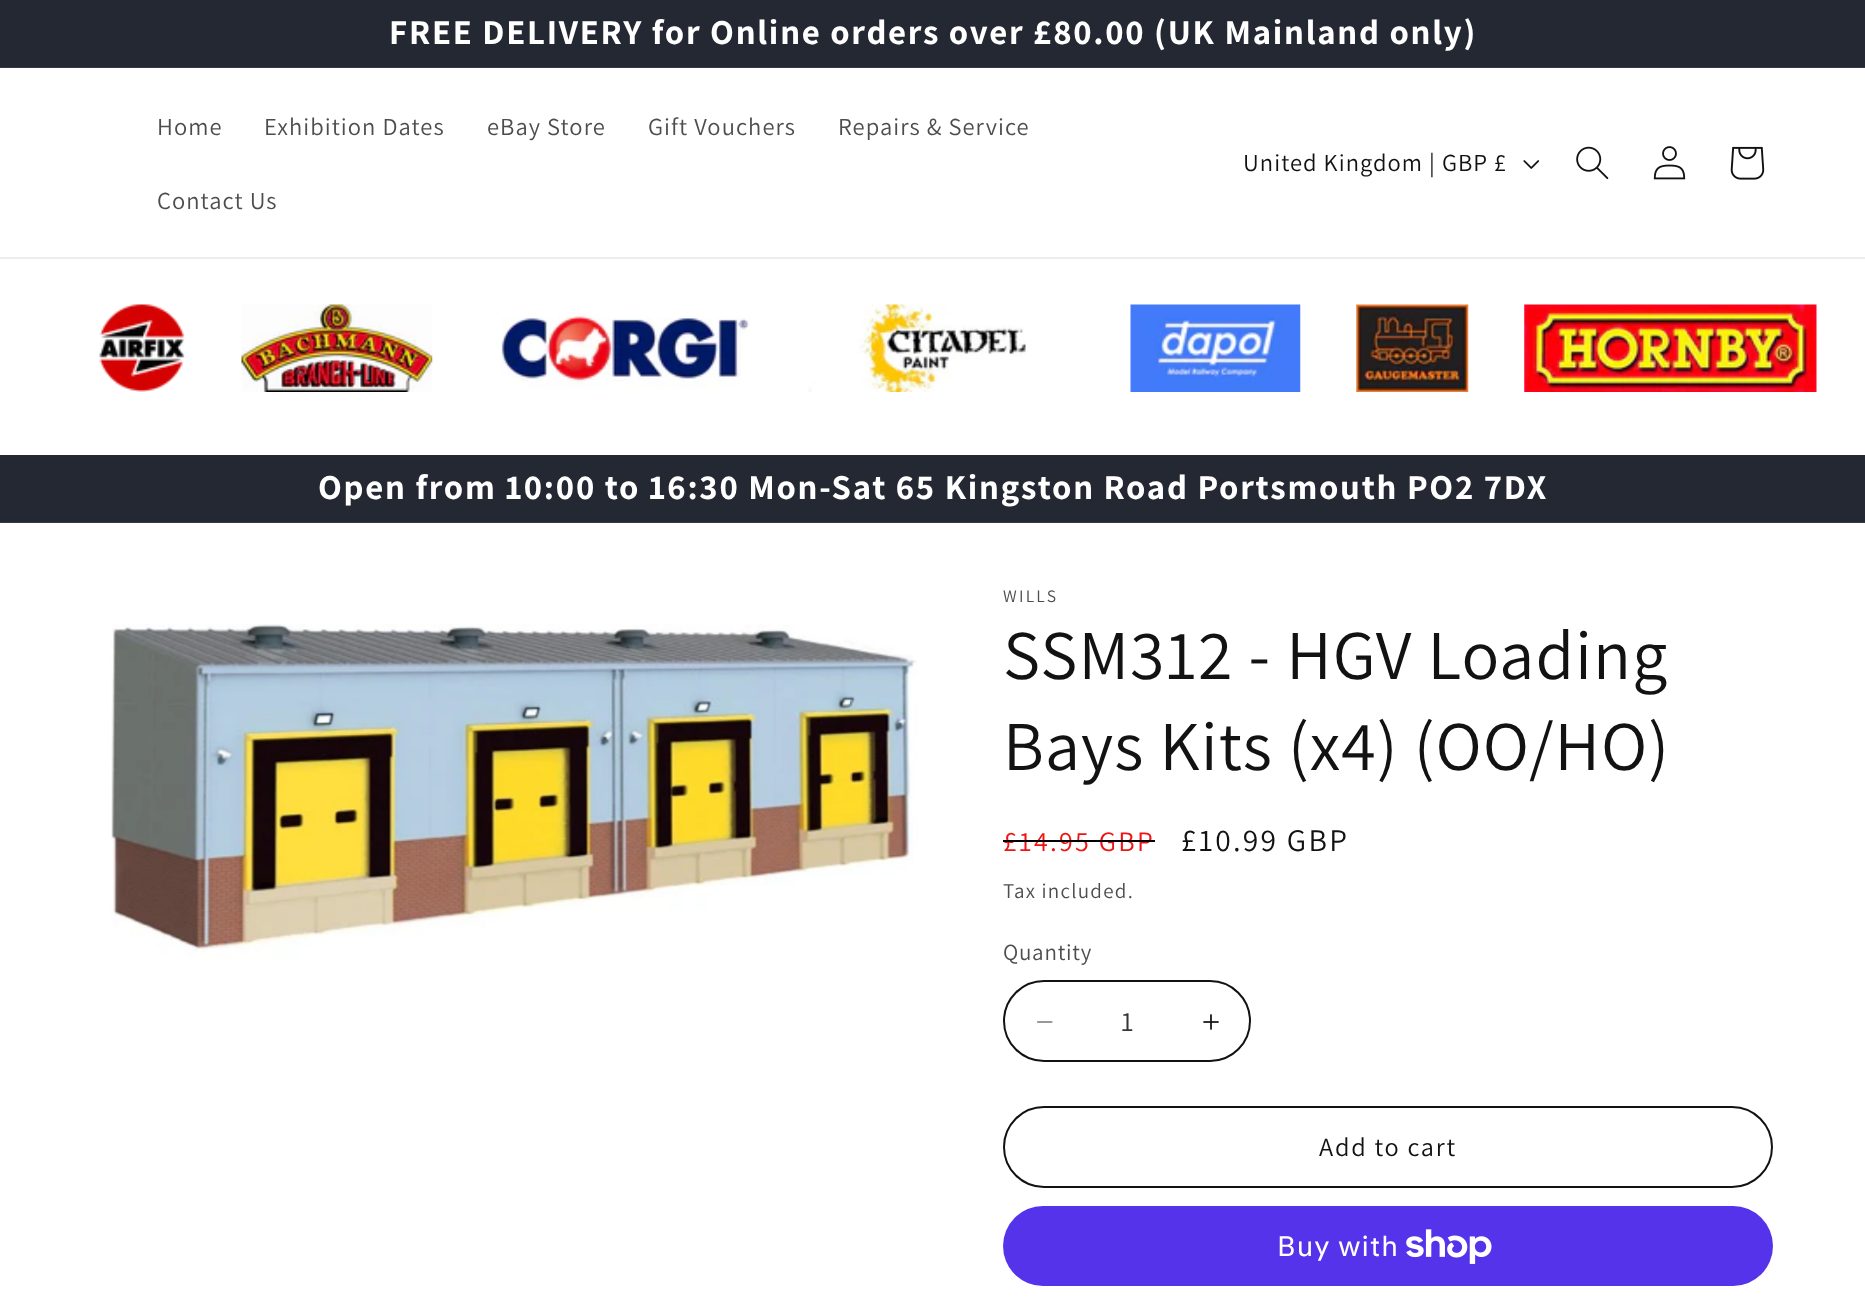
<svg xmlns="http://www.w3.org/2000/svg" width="1865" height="1303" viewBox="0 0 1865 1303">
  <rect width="100%" height="100%" fill="#ffffff"/>
  <rect x="0" y="0" width="1865" height="67" fill="#242833"/>
  <rect x="0" y="67" width="1865" height="1" fill="#363943"/>
  <text x="389" y="44" font-family="Assistant" font-size="35" font-weight="bold" letter-spacing="1.75" fill="#ffffff">FREE DELIVERY for Online orders over £80.00 (UK Mainland only)</text>
  <rect x="0" y="257" width="1865" height="2" fill="#ececec"/>
  <text x="157" y="135" font-family="Assistant" font-size="24.5" letter-spacing="1.05" fill="#4d4d4d">Home</text>
  <text x="264" y="135" font-family="Assistant" font-size="24.5" letter-spacing="1.05" fill="#4d4d4d">Exhibition Dates</text>
  <text x="487" y="135" font-family="Assistant" font-size="24.5" letter-spacing="1.05" fill="#4d4d4d">eBay Store</text>
  <text x="648" y="135" font-family="Assistant" font-size="24.5" letter-spacing="1.05" fill="#4d4d4d">Gift Vouchers</text>
  <text x="838" y="135" font-family="Assistant" font-size="24.5" letter-spacing="1.05" fill="#4d4d4d">Repairs &amp; Service</text>
  <text x="157" y="209" font-family="Assistant" font-size="24.5" letter-spacing="1.05" fill="#4d4d4d">Contact Us</text>
  <text x="1243" y="171" font-family="Assistant" font-size="24.5" letter-spacing="1.05" fill="#121212">United Kingdom | GBP £</text>
  <image x="1523" y="160" width="16" height="9" href="img1.png"/>
  <image x="1576" y="146" width="33" height="34" href="img2.png"/>
  <image x="1653" y="146" width="33" height="34" href="img3.png"/>
  <image x="1730" y="146" width="35" height="34" href="img4.png"/>
  <image x="99" y="304" width="86" height="88" href="img5.png"/>
  <image x="241" y="304" width="192" height="88" href="img6.png"/>
  <image x="501" y="313" width="249" height="76" href="img7.png"/>
  <image x="808" y="304" width="218" height="88" href="img8.png"/>
  <image x="1130" y="304" width="171" height="88" href="img9.png"/>
  <image x="1356" y="304" width="113" height="88" href="img10.png"/>
  <image x="1524" y="304" width="293" height="88" href="img11.png"/>
  <rect x="0" y="455" width="1865" height="67" fill="#242833"/>
  <rect x="0" y="522" width="1865" height="1" fill="#363943"/>
  <text x="318" y="499" font-family="Assistant" font-size="35" font-weight="bold" letter-spacing="1.75" fill="#ffffff">Open from 10:00 to 16:30 Mon-Sat 65 Kingston Road Portsmouth PO2 7DX</text>
  <image x="111" y="624" width="808" height="335" href="img12.png"/>
  <text x="1003" y="602" font-family="Assistant" font-size="17.5" letter-spacing="2.25" fill="#4d4d4d">WILLS</text>
  <text x="1003" y="679" font-family="Assistant" font-size="70" letter-spacing="1.05" fill="#121212">SSM312 - HGV Loading</text>
  <text x="1003" y="770" font-family="Assistant" font-size="70" letter-spacing="1.05" fill="#121212">Bays Kits (x4) (OO/HO)</text>
  <text x="1003" y="851" font-family="Assistant" font-size="28" letter-spacing="2.25" fill="#f01313">£14.95 GBP</text>
  <rect x="1003" y="840" width="152" height="2" fill="#000000"/>
  <text x="1181" y="851" font-family="Assistant" font-size="31.5" letter-spacing="2.25" fill="#121212">£10.99 GBP</text>
  <text x="1003" y="898" font-family="Assistant" font-size="21" letter-spacing="1.25" fill="#4d4d4d">Tax included.</text>
  <text x="1003" y="960" font-family="Assistant" font-size="23" letter-spacing="0.75" fill="#4d4d4d">Quantity</text>
  <image x="1037" y="1021" width="16" height="2" href="img13.png"/>
  <image x="1203" y="1014" width="16" height="16" href="img14.png"/>
  <rect x="1004" y="981" width="246" height="80" rx="40" fill="none" stroke="#121212" stroke-width="2"/>
  <text x="1121" y="1031" font-family="Assistant" font-size="28" fill="#363636">1</text>
  <rect x="1004" y="1107" width="768" height="80" rx="40" fill="none" stroke="#121212" stroke-width="2"/>
  <text x="1319" y="1156" font-family="Assistant" font-size="26.25" letter-spacing="1.75" fill="#121212">Add to cart</text>
  <rect x="1003" y="1206" width="770" height="80" rx="40" fill="#5433eb"/>
  <text x="1277" y="1256" font-family="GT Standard" font-size="28" letter-spacing="1.05" fill="#ffffff">Buy with</text>
  <image x="1406" y="1229" width="86" height="35" href="img15.png"/>
</svg>
